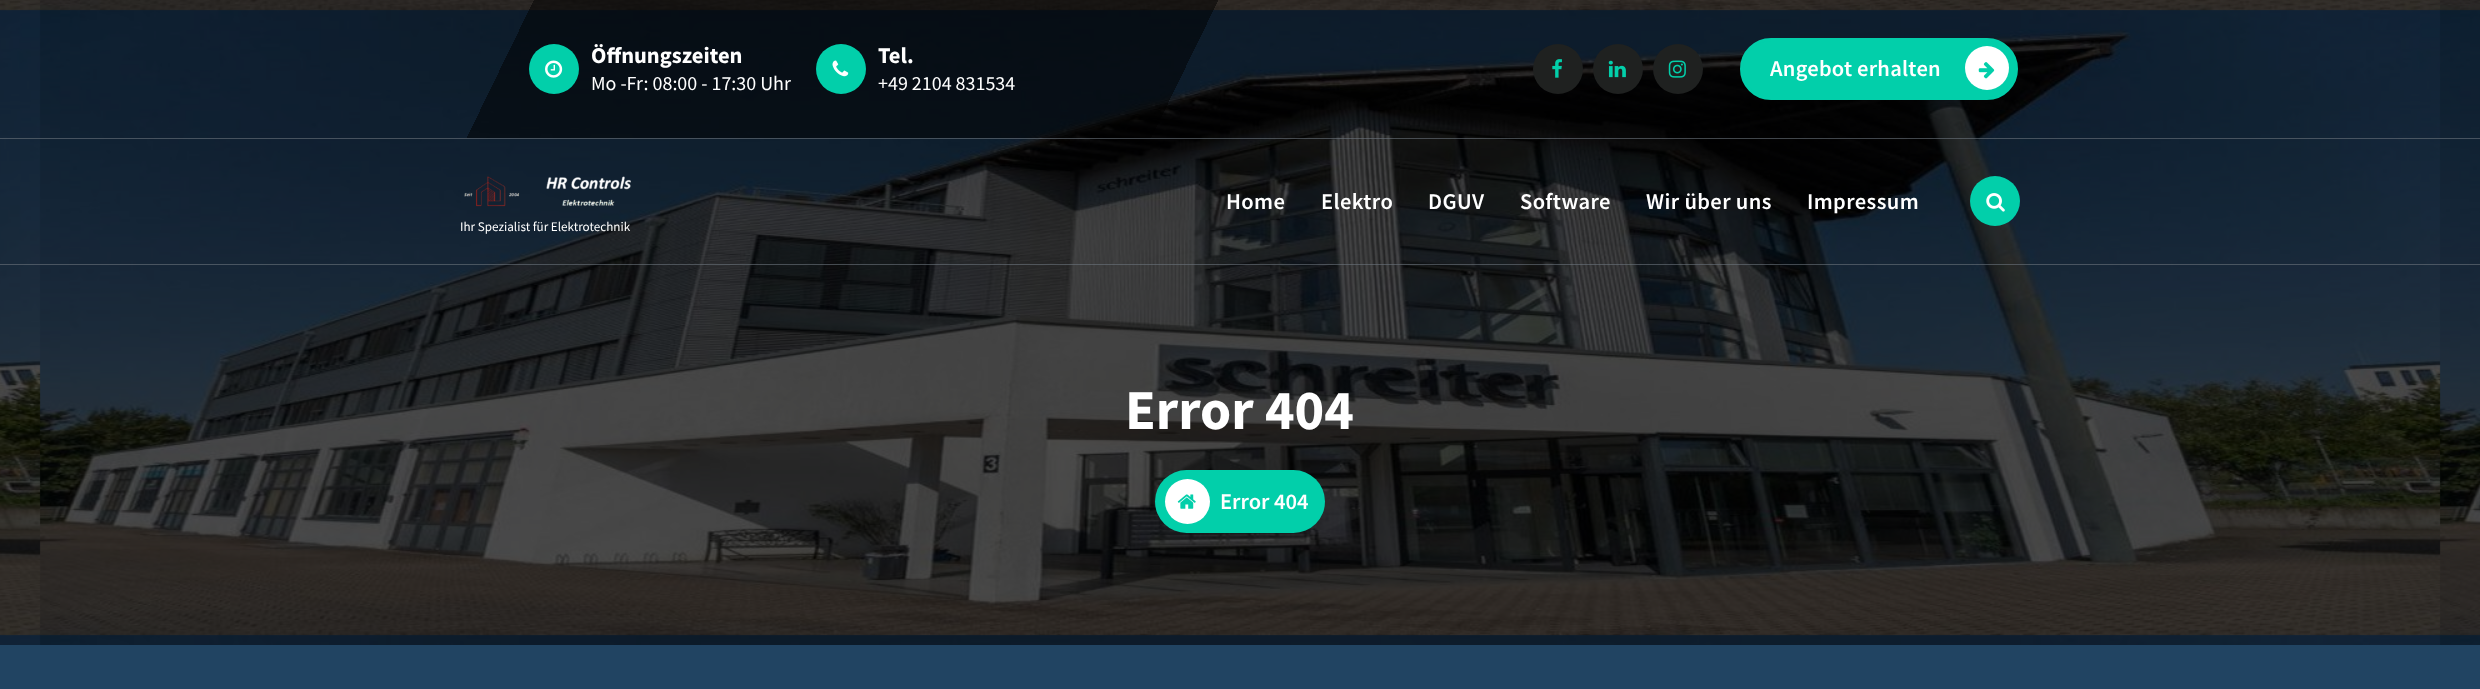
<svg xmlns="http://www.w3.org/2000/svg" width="2480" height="689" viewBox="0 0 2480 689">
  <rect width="100%" height="100%" fill="#214462"/>
  <image x="0" y="0" width="2480" height="645" href="img9.png"/>
  <rect x="0" y="138" width="2480" height="1" fill="#6c757d" fill-opacity="0.6"/>
  <circle cx="554" cy="69" r="25" fill="#02cfaa"/>
  <image x="545" y="60" width="18" height="18" href="img1.png"/>
  <text x="591" y="63" font-family="Source Sans Pro" font-size="22.5" font-weight="bold" fill="#ffffff">Öffnungszeiten</text>
  <text x="591" y="90" font-family="Source Sans Pro" font-size="20" fill="#ffffff">Mo -Fr: 08:00 - 17:30 Uhr</text>
  <circle cx="841" cy="69" r="25" fill="#02cfaa"/>
  <image x="832" y="60" width="17" height="17" href="img2.png"/>
  <text x="878" y="63" font-family="Source Sans Pro" font-size="22.5" font-weight="bold" fill="#ffffff">Tel.</text>
  <text x="878" y="90" font-family="Source Sans Pro" font-size="20" fill="#ffffff">+49 2104 831534</text>
  <circle cx="1558" cy="69" r="25" fill="#1f2120"/>
  <image x="1552" y="59" width="10" height="19" href="img3.png"/>
  <circle cx="1618" cy="69" r="25" fill="#1f2120"/>
  <image x="1608" y="60" width="18" height="18" href="img4.png"/>
  <circle cx="1678" cy="69" r="25" fill="#1f2120"/>
  <image x="1668" y="60" width="18" height="18" href="img5.png"/>
  <rect x="1741.5" y="39.5" width="275" height="59" rx="29.5" fill="#02cfaa" stroke="#02cfaa" stroke-width="3"/>
  <text x="1770" y="76" font-family="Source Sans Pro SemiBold" font-size="22.5" font-weight="600" letter-spacing="0.25" fill="#ffffff">Angebot erhalten</text>
  <circle cx="1987" cy="68" r="22" fill="#ffffff"/>
  <image x="1978" y="62" width="17" height="17" href="img6.png"/>
  <rect x="0" y="264" width="2480" height="1" fill="#6c757d" fill-opacity="0.6"/>
  <text x="1226" y="209" font-family="Source Sans Pro SemiBold" font-size="22.5" font-weight="600" letter-spacing="0.4" fill="#ffffff">Home</text>
  <text x="1321" y="209" font-family="Source Sans Pro SemiBold" font-size="22.5" font-weight="600" letter-spacing="0.4" fill="#ffffff">Elektro</text>
  <text x="1428" y="209" font-family="Source Sans Pro SemiBold" font-size="22.5" font-weight="600" letter-spacing="0.4" fill="#ffffff">DGUV</text>
  <text x="1520" y="209" font-family="Source Sans Pro SemiBold" font-size="22.5" font-weight="600" letter-spacing="0.4" fill="#ffffff">Software</text>
  <text x="1646" y="209" font-family="Source Sans Pro SemiBold" font-size="22.5" font-weight="600" letter-spacing="0.4" fill="#ffffff">Wir über uns</text>
  <text x="1807" y="209" font-family="Source Sans Pro SemiBold" font-size="22.5" font-weight="600" letter-spacing="0.4" fill="#ffffff">Impressum</text>
  <circle cx="1995" cy="201" r="25" fill="#02cfaa"/>
  <image x="1986" y="193" width="19" height="19" href="img7.png"/>
  <image x="464" y="176" width="167" height="31" href="img8.png"/>
  <text x="460" y="231" font-family="Source Sans Pro" font-size="13.1" fill="#ffffff">Ihr Spezialist für Elektrotechnik</text>
  <text x="1125" y="429" font-family="Source Sans Pro" font-size="56.25" font-weight="bold" fill="#ffffff">Error 404</text>
  <rect x="1155" y="470" width="170" height="63" rx="31.5" fill="#02cfaa"/>
  <circle cx="1187.5" cy="501.5" r="22.5" fill="#ffffff"/>
  <image x="1177" y="494" width="19" height="15" href="img10.png"/>
  <text x="1220" y="509" font-family="Source Sans Pro SemiBold" font-size="22.5" font-weight="600" fill="#ffffff">Error 404</text>
</svg>
